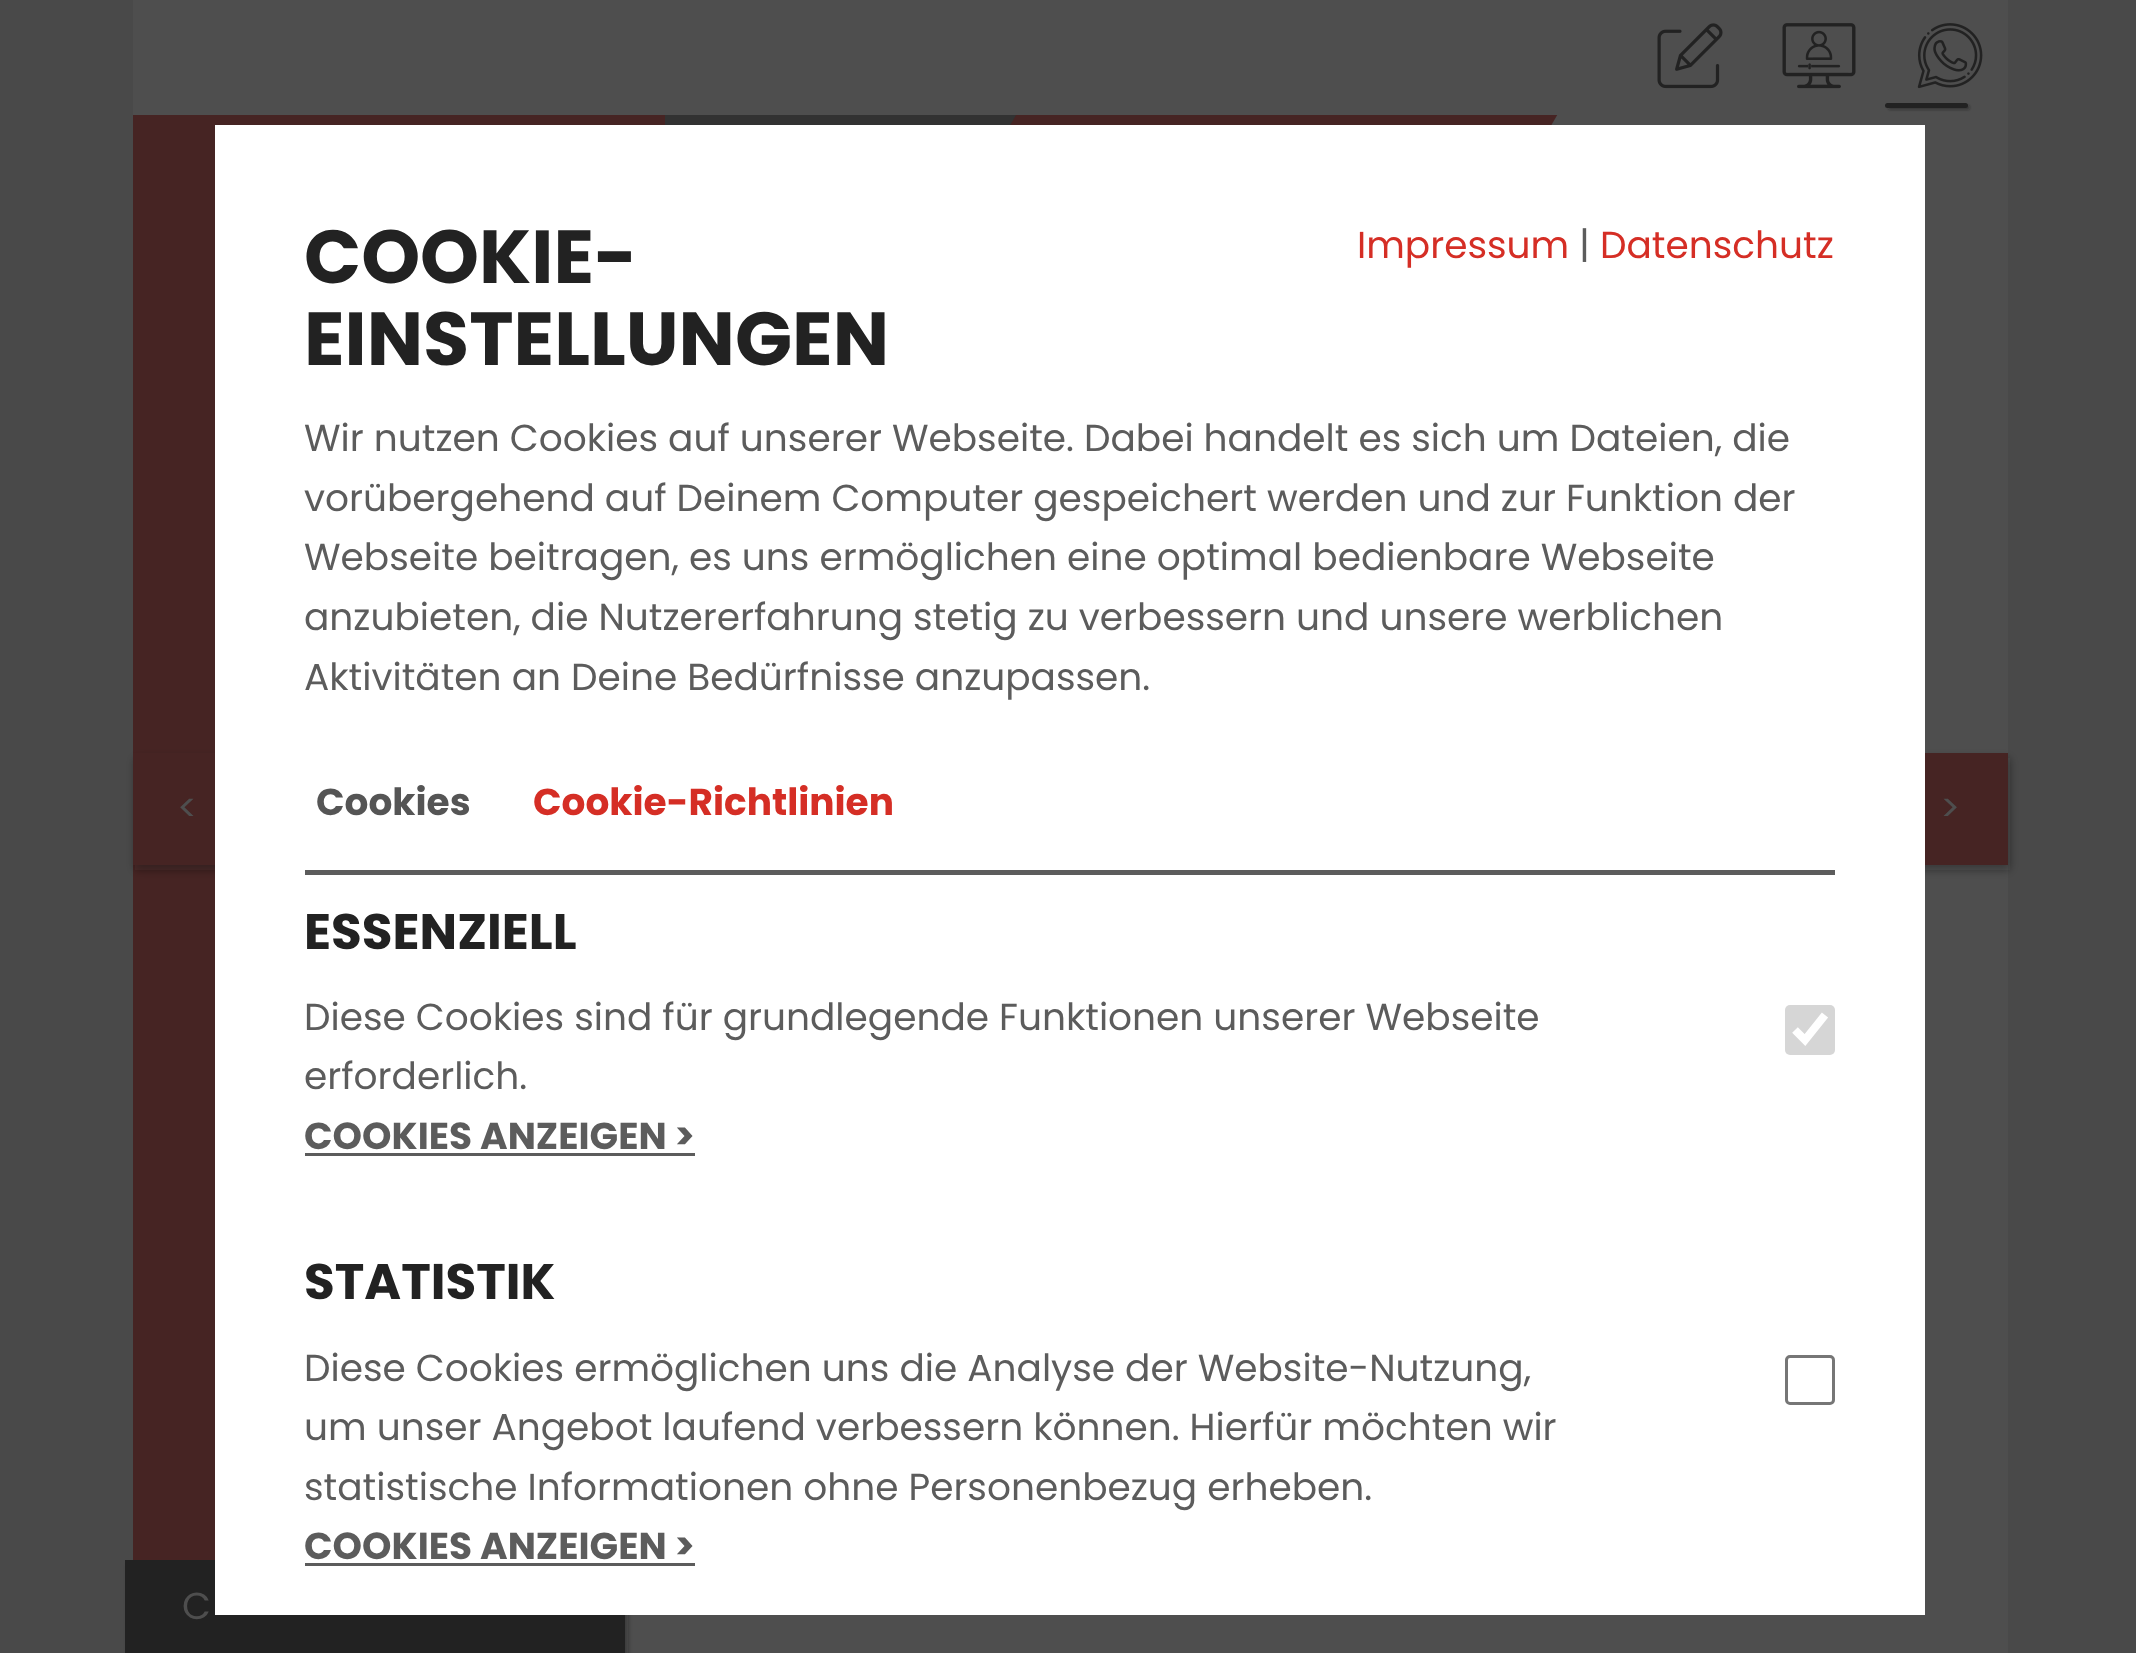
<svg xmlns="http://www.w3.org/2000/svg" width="2136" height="1653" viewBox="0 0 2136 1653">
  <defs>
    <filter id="blur1" x="-50%" y="-200%" width="200%" height="500%"><feGaussianBlur stdDeviation="1"/></filter>
    <clipPath id="clip1"><rect x="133" y="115" width="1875" height="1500"/></clipPath>
    <filter id="blur2" x="-50%" y="-200%" width="200%" height="500%"><feGaussianBlur stdDeviation="12.5"/></filter>
    <clipPath id="clip2"><rect x="133" y="115" width="1875" height="1500"/></clipPath>
    <clipPath id="clip3"><path d="M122 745H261V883H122ZM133 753H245V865H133Z" clip-rule="evenodd"/></clipPath>
    <filter id="blur3" x="-50%" y="-200%" width="200%" height="500%"><feGaussianBlur stdDeviation="4"/></filter>
    <filter id="blur4" x="-50%" y="-200%" width="200%" height="500%"><feGaussianBlur stdDeviation="2.5"/></filter>
  </defs>
  <rect width="100%" height="100%" fill="#494949"/>
  <rect x="133" y="0" width="1875" height="115" fill="#4e4e4e"/>
  <image x="1657" y="23" width="66" height="66" href="img1.png"/>
  <image x="1782" y="23" width="74" height="66" href="img2.png"/>
  <image x="1917" y="23" width="66" height="66" href="img3.png"/>
  <rect x="1888" y="105" width="82" height="5" rx="2.5" fill="#1b1b1b" fill-opacity="0.4" filter="url(#blur1)"/>
  <rect x="1885" y="103" width="83" height="5" rx="2.5" fill="#222222"/>
  <rect x="625" y="115" width="1383" height="1538" fill="#4e4e4e"/>
  <g clip-path="url(#clip1)">
    <rect x="620" y="-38" width="468" height="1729" fill="#1b1b1b" fill-opacity="0.5" filter="url(#blur2)"/>
  </g>
  <g clip-path="url(#clip2)">
    <path d="M1213-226L1619 8L494 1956L88 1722Z" fill="#462423"/>
  </g>
  <rect x="133" y="115" width="532" height="1445" fill="#462423"/>
  <g clip-path="url(#clip3)">
    <rect x="135" y="758" width="113" height="112" fill="#1b1b1b" fill-opacity="0.4" filter="url(#blur3)"/>
  </g>
  <rect x="1898" y="758" width="112" height="112" fill="#1b1b1b" fill-opacity="0.4" filter="url(#blur3)"/>
  <rect x="128" y="1565" width="500" height="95" fill="#1b1b1b" fill-opacity="0.38" filter="url(#blur4)"/>
  <rect x="125" y="1560" width="500" height="93" fill="#222222"/>
  <rect x="215" y="125" width="1710" height="1490" fill="#ffffff"/>
  <text x="304" y="283" font-family="Poppins" font-size="75" font-weight="bold" fill="#222222">COOKIE-</text>
  <text x="304" y="365" font-family="Poppins" font-size="75" font-weight="bold" fill="#222222">EINSTELLUNGEN</text>
  <text x="1357" y="258" font-family="Poppins" font-size="37.5" fill="#d52e25">Impressum</text>
  <text x="1579" y="258" font-family="Poppins" font-size="37.5" fill="#5c5c5c">|</text>
  <text x="1600" y="258" font-family="Poppins" font-size="37.5" fill="#d52e25">Datenschutz</text>
  <text x="304" y="451" font-family="Poppins" font-size="37.5" fill="#5c5c5c">Wir nutzen Cookies auf unserer Webseite. Dabei handelt es sich um Dateien, die</text>
  <text x="304" y="511" font-family="Poppins" font-size="37.5" fill="#5c5c5c">vorübergehend auf Deinem Computer gespeichert werden und zur Funktion der</text>
  <text x="304" y="570" font-family="Poppins" font-size="37.5" fill="#5c5c5c">Webseite beitragen, es uns ermöglichen eine optimal bedienbare Webseite</text>
  <text x="304" y="630" font-family="Poppins" font-size="37.5" fill="#5c5c5c">anzubieten, die Nutzererfahrung stetig zu verbessern und unsere werblichen</text>
  <text x="304" y="690" font-family="Poppins" font-size="37.5" fill="#5c5c5c">Aktivitäten an Deine Bedürfnisse anzupassen.</text>
  <text x="316" y="815" font-family="Poppins" font-size="37.5" font-weight="bold" fill="#555555">Cookies</text>
  <text x="533" y="815" font-family="Poppins" font-size="37.5" font-weight="bold" fill="#d52e25">Cookie-Richtlinien</text>
  <rect x="305" y="870" width="1530" height="5" fill="#5c5c5c"/>
  <text x="304" y="949" font-family="Poppins" font-size="50" font-weight="bold" fill="#222222">ESSENZIELL</text>
  <text x="304" y="1030" font-family="Poppins" font-size="37.5" fill="#5c5c5c">Diese Cookies sind für grundlegende Funktionen unserer Webseite</text>
  <text x="304" y="1089" font-family="Poppins" font-size="37.5" fill="#5c5c5c">erforderlich.</text>
  <text x="304" y="1149" font-family="Poppins" font-size="37.5" font-weight="bold" fill="#5c5c5c">COOKIES ANZEIGEN &gt;</text>
  <rect x="305" y="1153" width="390" height="3" fill="#5c5c5c"/>
  <rect x="1785" y="1005" width="50" height="50" rx="5" fill="#d6d6d6"/>
  <path d="M1795 1030L1805 1040L1825 1015" fill="none" stroke="#ffffff" stroke-width="8"/>
  <text x="304" y="1299" font-family="Poppins" font-size="50" font-weight="bold" fill="#222222">STATISTIK</text>
  <text x="304" y="1381" font-family="Poppins" font-size="37.5" fill="#5c5c5c">Diese Cookies ermöglichen uns die Analyse der Website-Nutzung,</text>
  <text x="304" y="1440" font-family="Poppins" font-size="37.5" fill="#5c5c5c">um unser Angebot laufend verbessern können. Hierfür möchten wir</text>
  <text x="304" y="1500" font-family="Poppins" font-size="37.5" fill="#5c5c5c">statistische Informationen ohne Personenbezug erheben.</text>
  <text x="304" y="1559" font-family="Poppins" font-size="37.5" font-weight="bold" fill="#5c5c5c">COOKIES ANZEIGEN &gt;</text>
  <rect x="305" y="1563" width="390" height="3" fill="#5c5c5c"/>
  <rect x="1786.5" y="1356.5" width="47" height="47" rx="3.5" fill="none" stroke="#767676" stroke-width="3"/>
  <text x="177" y="821" font-family="Poppins" font-size="37.5" fill="#4e4e4e">&lt;</text>
  <rect x="1925" y="753" width="83" height="112" fill="#462423"/>
  <text x="1940" y="821" font-family="Poppins" font-size="37.5" fill="#4e4e4e">&gt;</text>
  <text x="182" y="1619" font-family="Poppins" font-size="37.5" fill="#4e4e4e">C</text>
</svg>
